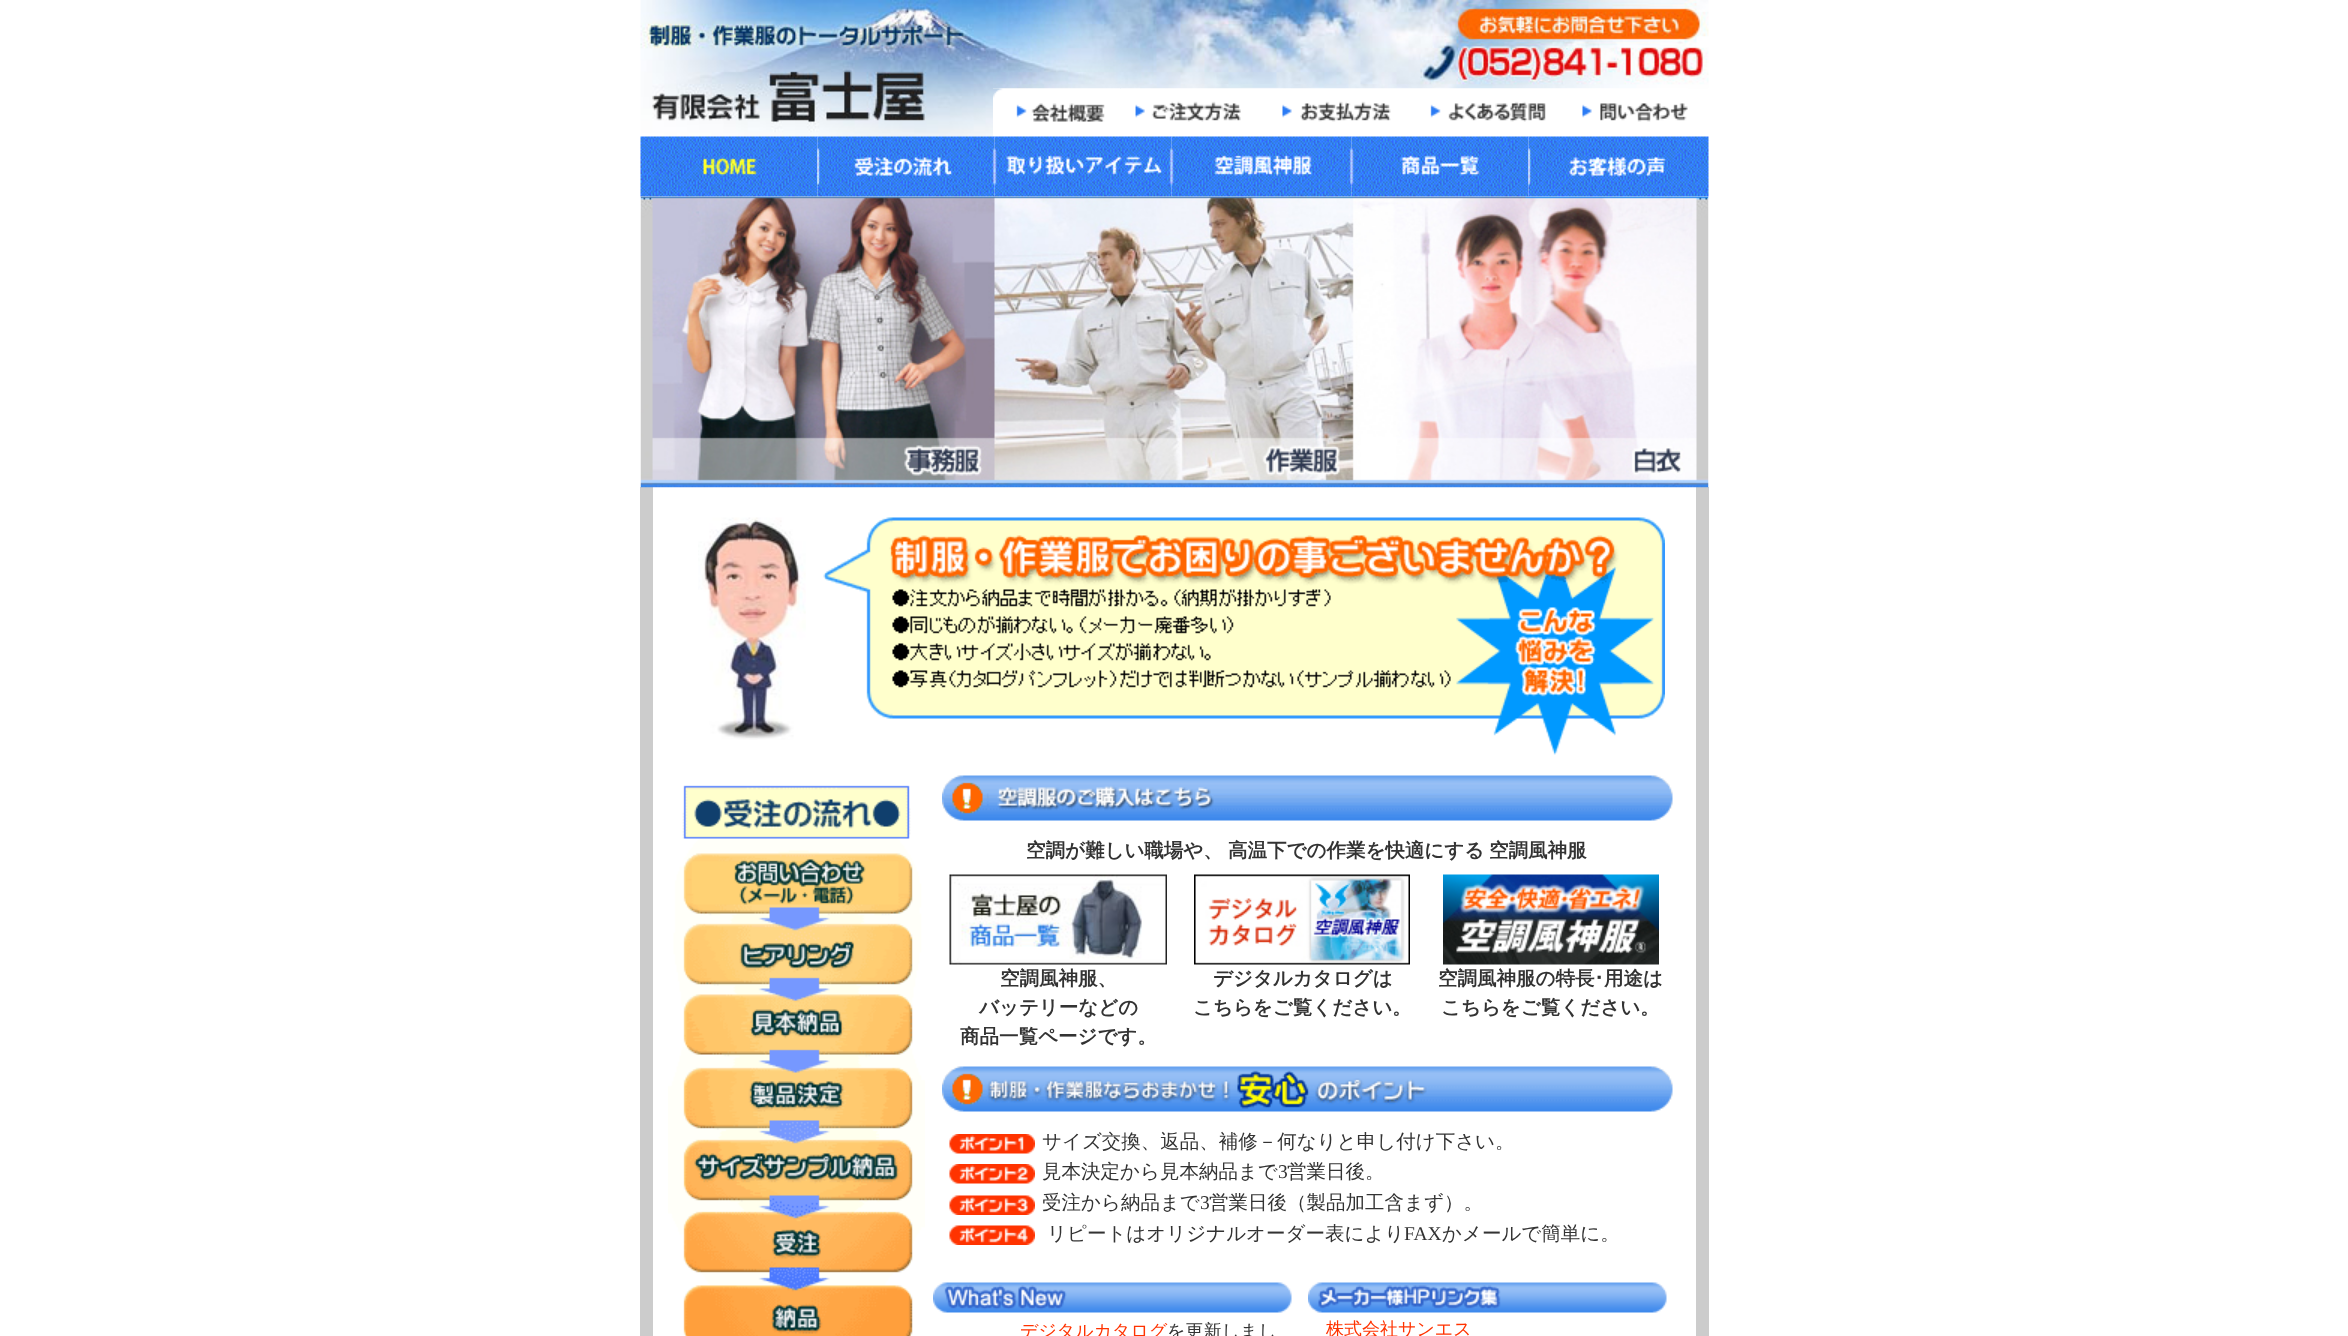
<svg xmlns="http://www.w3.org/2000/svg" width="2348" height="1336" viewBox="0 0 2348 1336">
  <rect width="100%" height="100%" fill="#ffffff"/>
  <image x="640" y="0" width="353" height="137" href="img1.png"/>
  <image x="993" y="0" width="716" height="89" href="img2.png"/>
  <image x="993" y="88" width="127" height="34" href="img3.png"/>
  <image x="1121" y="88" width="139" height="34" href="img4.png"/>
  <image x="1260" y="88" width="150" height="34" href="img5.png"/>
  <image x="1410" y="88" width="150" height="34" href="img6.png"/>
  <image x="1560" y="88" width="128" height="34" href="img7.png"/>
  <image x="640" y="136" width="178" height="61" href="img8.png"/>
  <image x="817" y="136" width="178" height="61" href="img9.png"/>
  <image x="994" y="136" width="178" height="61" href="img10.png"/>
  <image x="1171" y="136" width="181" height="61" href="img11.png"/>
  <image x="1351" y="136" width="178" height="61" href="img12.png"/>
  <image x="1528" y="136" width="181" height="61" href="img13.png"/>
  <rect x="640" y="487" width="13" height="849" fill="#cccccc"/>
  <rect x="1696" y="487" width="13" height="849" fill="#cccccc"/>
  <image x="640" y="196" width="1069" height="292" href="img14.png"/>
  <image x="698" y="517" width="108" height="223" href="img15.png"/>
  <image x="823" y="517" width="842" height="238" href="img16.png"/>
  <image x="668" y="785" width="257" height="551" href="img17.png"/>
  <image x="942" y="775" width="731" height="46" href="img18.png"/>
  <text x="1026" y="857" font-family="WenQuanYi Zen Hei" font-size="19.5" font-weight="bold" fill="#333333">空調が難しい職場や、</text>
  <text x="1228" y="857" font-family="WenQuanYi Zen Hei" font-size="19.5" font-weight="bold" fill="#333333">高温下での作業を快適にする</text>
  <text x="1489" y="857" font-family="WenQuanYi Zen Hei" font-size="19.5" font-weight="bold" fill="#333333">空調風神服</text>
  <image x="949" y="874" width="218" height="91" href="img19.png"/>
  <text x="1000" y="985" font-family="WenQuanYi Zen Hei" font-size="19.5" font-weight="bold" fill="#333333">空調風神服、</text>
  <text x="979" y="1014" font-family="WenQuanYi Zen Hei" font-size="19.5" font-weight="bold" fill="#333333">バッテリーなどの</text>
  <text x="960" y="1043" font-family="WenQuanYi Zen Hei" font-size="19.5" font-weight="bold" fill="#333333">商品一覧ページです。</text>
  <image x="1194" y="874" width="216" height="91" href="img20.png"/>
  <text x="1213" y="985" font-family="WenQuanYi Zen Hei" font-size="19.5" font-weight="bold" fill="#333333">デジタルカタログは</text>
  <text x="1193" y="1014" font-family="WenQuanYi Zen Hei" font-size="19.5" font-weight="bold" fill="#333333">こちらをご覧ください。</text>
  <image x="1443" y="874" width="216" height="91" href="img21.png"/>
  <text x="1438" y="985" font-family="WenQuanYi Zen Hei" font-size="19.5" font-weight="bold" fill="#333333">空調風神服の特長</text>
  <text x="1594" y="985" font-family="IPAPGothic" font-size="19.5" font-weight="bold" fill="#333333">･</text>
  <text x="1604" y="985" font-family="WenQuanYi Zen Hei" font-size="19.5" font-weight="bold" fill="#333333">用途は</text>
  <text x="1441" y="1014" font-family="WenQuanYi Zen Hei" font-size="19.5" font-weight="bold" fill="#333333">こちらをご覧ください。</text>
  <image x="942" y="1066" width="731" height="46" href="img22.png"/>
  <image x="949" y="1134" width="86" height="20" href="img23.png"/>
  <text x="1042" y="1148" font-family="WenQuanYi Zen Hei" font-size="19.5" font-weight="500" fill="#333333">サイズ交換、返品、補修－何なりと申し付け下さい。</text>
  <image x="949" y="1164" width="86" height="20" href="img24.png"/>
  <text x="1042" y="1178" font-family="WenQuanYi Zen Hei" font-size="19.5" font-weight="500" fill="#333333">見本決定から見本納品まで</text>
  <text x="1278" y="1178" font-family="Liberation Serif" font-size="19.5" fill="#333333">3</text>
  <text x="1287" y="1178" font-family="WenQuanYi Zen Hei" font-size="19.5" font-weight="500" fill="#333333">営業日後。</text>
  <image x="949" y="1195" width="86" height="20" href="img25.png"/>
  <text x="1042" y="1209" font-family="WenQuanYi Zen Hei" font-size="19.5" font-weight="500" fill="#333333">受注から納品まで</text>
  <text x="1200" y="1209" font-family="Liberation Serif" font-size="19.5" fill="#333333">3</text>
  <text x="1209" y="1209" font-family="WenQuanYi Zen Hei" font-size="19.5" font-weight="500" fill="#333333">営業日後（製品加工含まず）。</text>
  <image x="949" y="1225" width="86" height="20" href="img26.png"/>
  <text x="1047" y="1240" font-family="WenQuanYi Zen Hei" font-size="19.5" font-weight="500" fill="#333333">リピートはオリジナルオーダー表により</text>
  <text x="1404" y="1240" font-family="Liberation Serif" font-size="19.5" fill="#333333">FAX</text>
  <text x="1442" y="1240" font-family="WenQuanYi Zen Hei" font-size="19.5" font-weight="500" fill="#333333">かメールで簡単に。</text>
  <image x="933" y="1282" width="359" height="31" href="img27.png"/>
  <image x="1308" y="1282" width="359" height="31" href="img28.png"/>
  <text x="1020" y="1337" font-family="WenQuanYi Zen Hei" font-size="18" font-weight="500" fill="#ff3300">デジタルカタログ</text>
  <text x="1167" y="1337" font-family="WenQuanYi Zen Hei" font-size="18" font-weight="500" fill="#333333">を更新しまし</text>
  <text x="1326" y="1335" font-family="WenQuanYi Zen Hei" font-size="18" font-weight="500" fill="#ff3300">株式会社サンエス</text>
</svg>
